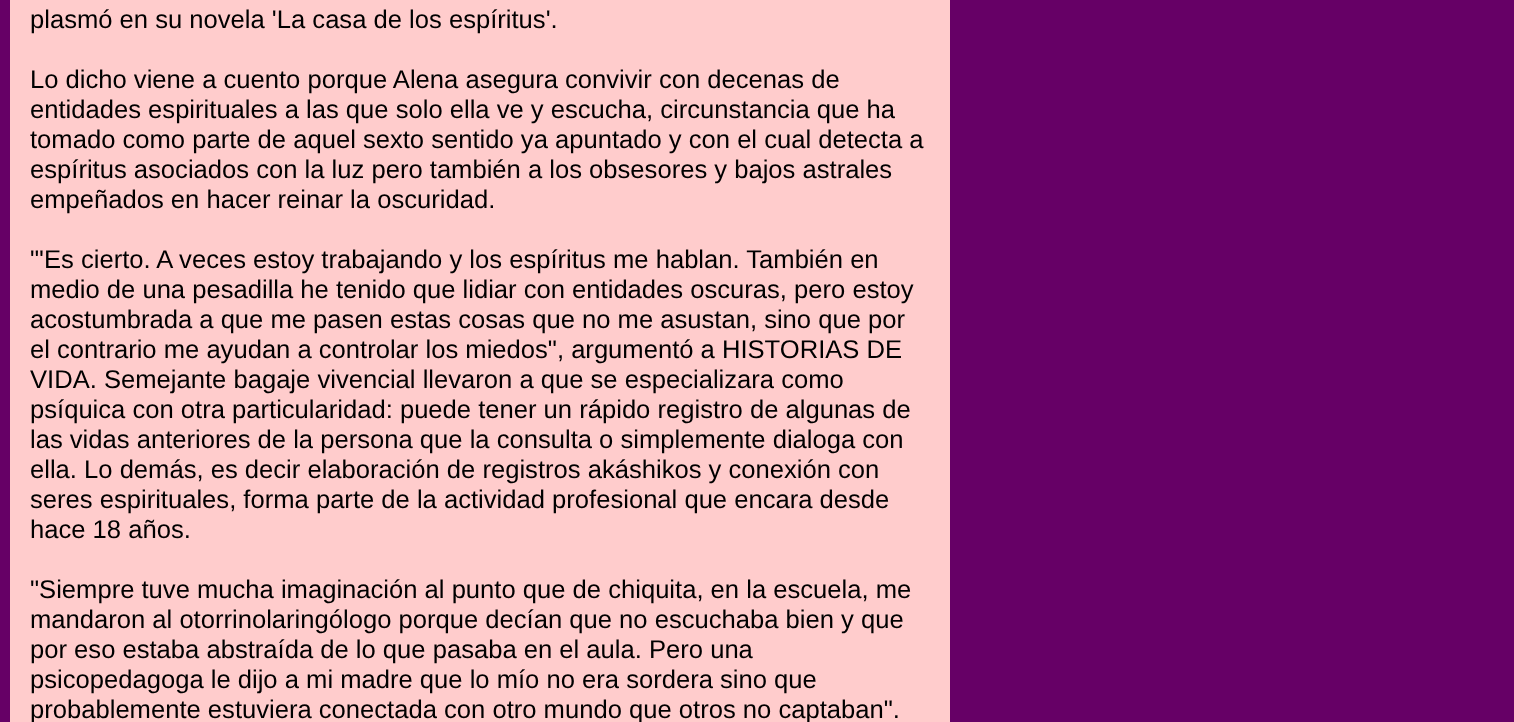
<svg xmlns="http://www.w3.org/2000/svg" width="1514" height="722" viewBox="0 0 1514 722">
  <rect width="100%" height="100%" fill="#660066"/>
  <rect x="10" y="0" width="940" height="722" fill="#ffcccc"/>
  <text x="30" y="28" font-family="Liberation Sans" font-size="25.6" fill="#000000">plasmó en su novela 'La casa de los espíritus'.</text>
  <text x="30" y="88" font-family="Liberation Sans" font-size="25.6" fill="#000000">Lo dicho viene a cuento porque Alena asegura convivir con decenas de</text>
  <text x="30" y="118" font-family="Liberation Sans" font-size="25.6" fill="#000000">entidades espirituales a las que solo ella ve y escucha, circunstancia que ha</text>
  <text x="30" y="148" font-family="Liberation Sans" font-size="25.6" fill="#000000">tomado como parte de aquel sexto sentido ya apuntado y con el cual detecta a</text>
  <text x="30" y="178" font-family="Liberation Sans" font-size="25.6" fill="#000000">espíritus asociados con la luz pero también a los obsesores y bajos astrales</text>
  <text x="30" y="208" font-family="Liberation Sans" font-size="25.6" fill="#000000">empeñados en hacer reinar la oscuridad.</text>
  <text x="30" y="268" font-family="Liberation Sans" font-size="25.6" fill="#000000">"'Es cierto. A veces estoy trabajando y los espíritus me hablan. También en</text>
  <text x="30" y="298" font-family="Liberation Sans" font-size="25.6" fill="#000000">medio de una pesadilla he tenido que lidiar con entidades oscuras, pero estoy</text>
  <text x="30" y="328" font-family="Liberation Sans" font-size="25.6" fill="#000000">acostumbrada a que me pasen estas cosas que no me asustan, sino que por</text>
  <text x="30" y="358" font-family="Liberation Sans" font-size="25.6" fill="#000000">el contrario me ayudan a controlar los miedos", argumentó a HISTORIAS DE</text>
  <text x="30" y="388" font-family="Liberation Sans" font-size="25.6" fill="#000000">VIDA. Semejante bagaje vivencial llevaron a que se especializara como</text>
  <text x="30" y="418" font-family="Liberation Sans" font-size="25.6" fill="#000000">psíquica con otra particularidad: puede tener un rápido registro de algunas de</text>
  <text x="30" y="448" font-family="Liberation Sans" font-size="25.6" fill="#000000">las vidas anteriores de la persona que la consulta o simplemente dialoga con</text>
  <text x="30" y="478" font-family="Liberation Sans" font-size="25.6" fill="#000000">ella. Lo demás, es decir elaboración de registros akáshikos y conexión con</text>
  <text x="30" y="508" font-family="Liberation Sans" font-size="25.6" fill="#000000">seres espirituales, forma parte de la actividad profesional que encara desde</text>
  <text x="30" y="538" font-family="Liberation Sans" font-size="25.6" fill="#000000">hace 18 años.</text>
  <text x="30" y="598" font-family="Liberation Sans" font-size="25.6" fill="#000000">"Siempre tuve mucha imaginación al punto que de chiquita, en la escuela, me</text>
  <text x="30" y="628" font-family="Liberation Sans" font-size="25.6" fill="#000000">mandaron al otorrinolaringólogo porque decían que no escuchaba bien y que</text>
  <text x="30" y="658" font-family="Liberation Sans" font-size="25.6" fill="#000000">por eso estaba abstraída de lo que pasaba en el aula. Pero una</text>
  <text x="30" y="688" font-family="Liberation Sans" font-size="25.6" fill="#000000">psicopedagoga le dijo a mi madre que lo mío no era sordera sino que</text>
  <text x="30" y="718" font-family="Liberation Sans" font-size="25.6" fill="#000000">probablemente estuviera conectada con otro mundo que otros no captaban".</text>
</svg>
